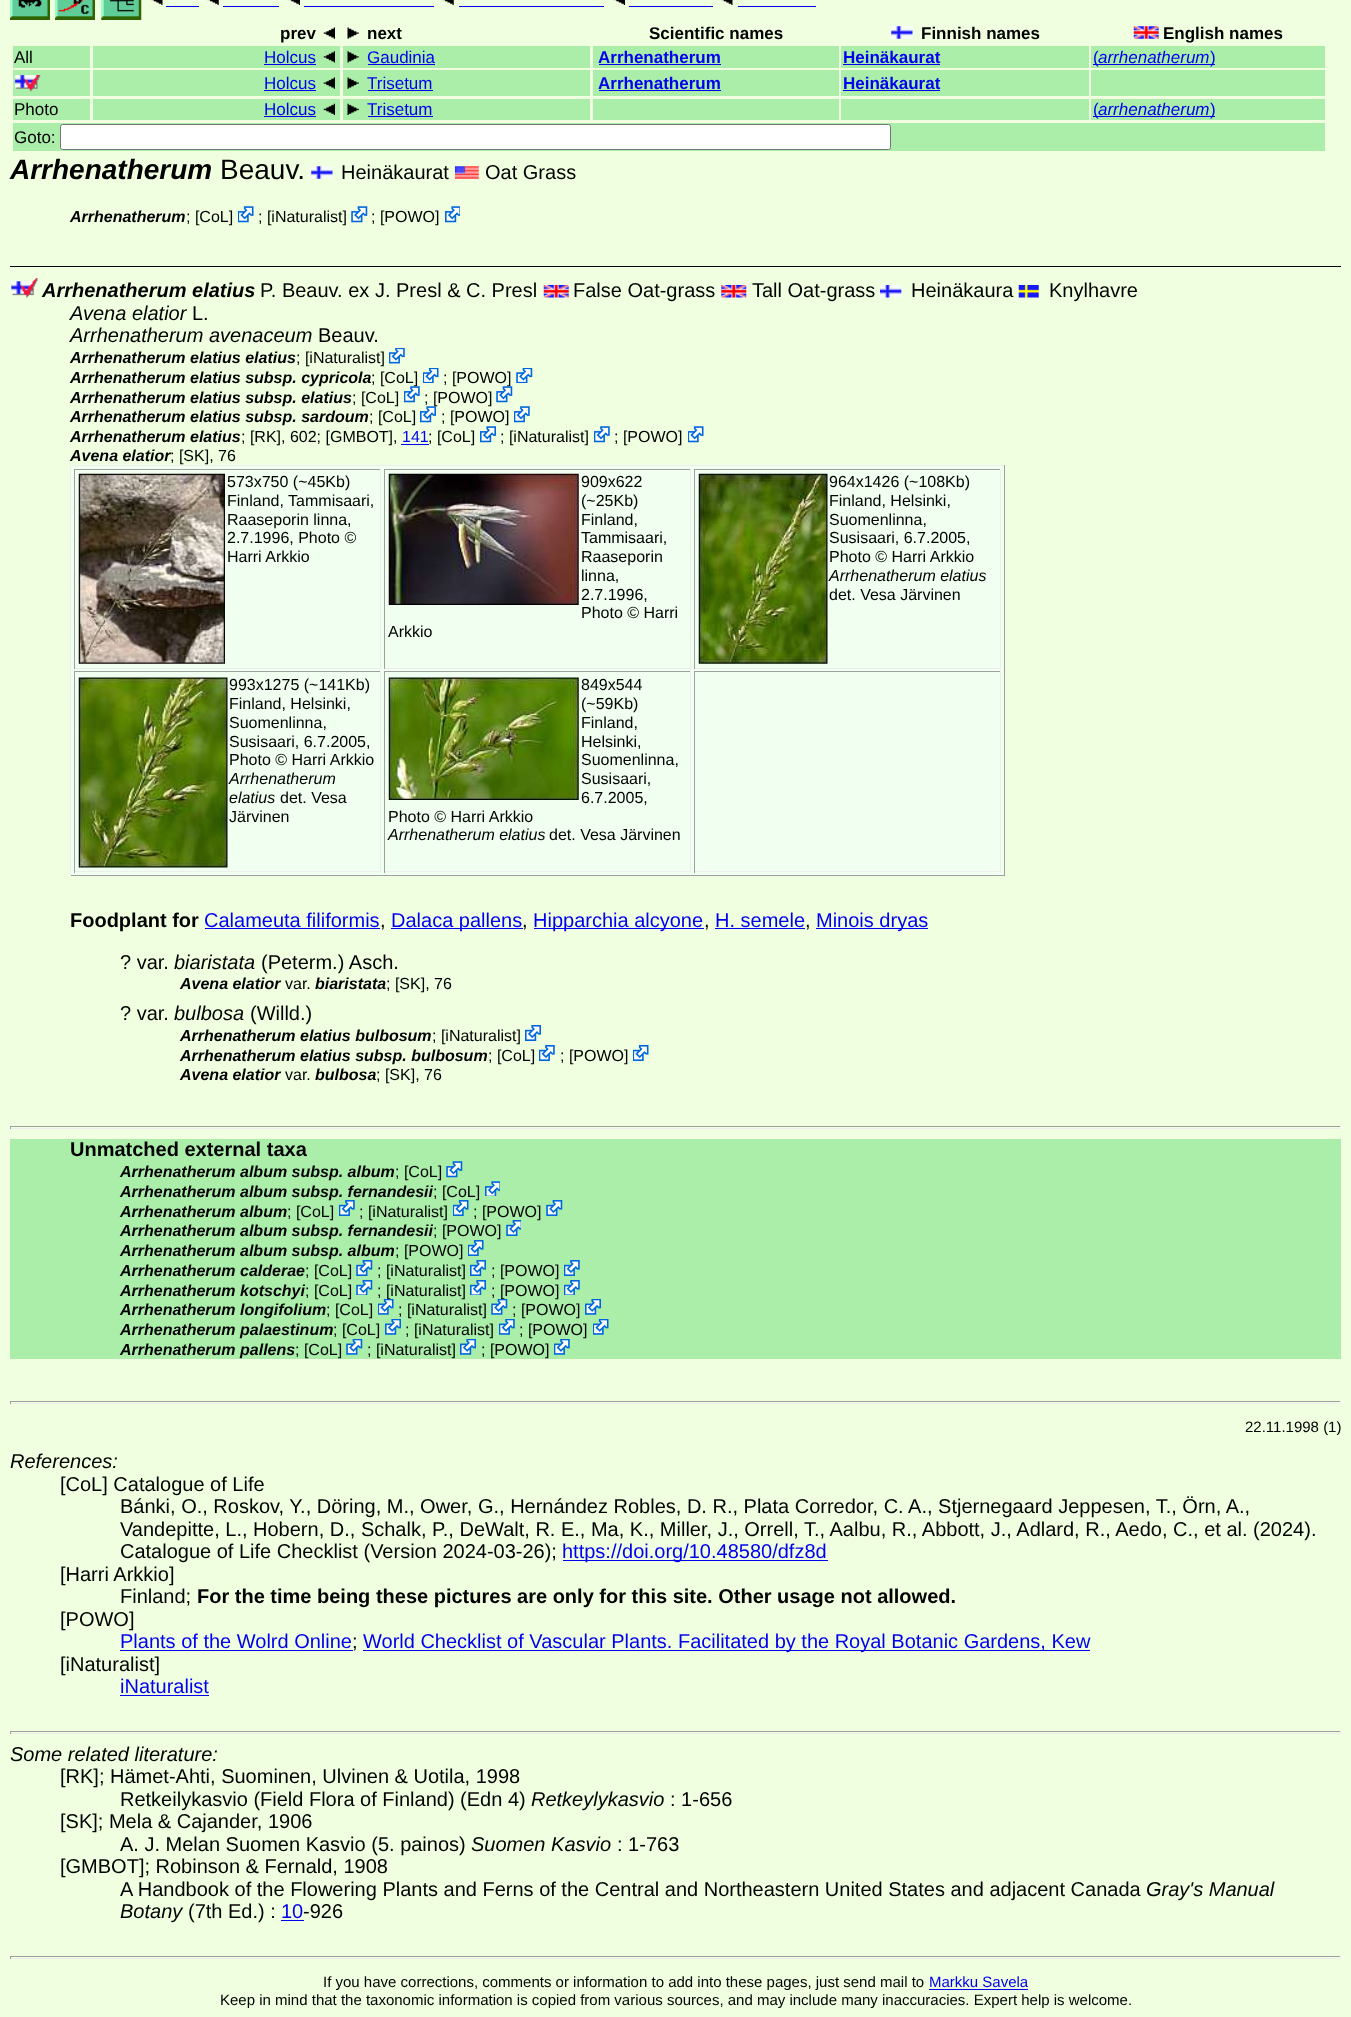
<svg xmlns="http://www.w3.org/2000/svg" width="1351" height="2017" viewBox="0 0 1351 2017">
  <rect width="100%" height="100%" fill="#f0ffe0"/>
  <image x="10" y="0" width="40" height="20" href="img1.png"/>
  <image x="55" y="0" width="40" height="20" href="img2.png"/>
  <image x="101" y="0" width="41" height="20" href="img3.png"/>
  <image x="151" y="0" width="12" height="5" href="img4.png"/>
  <image x="207" y="0" width="12" height="5" href="img5.png"/>
  <image x="288" y="0" width="12" height="5" href="img6.png"/>
  <image x="442" y="0" width="12" height="5" href="img5.png"/>
  <image x="613" y="0" width="12" height="5" href="img6.png"/>
  <image x="721" y="0" width="12" height="5" href="img4.png"/>
  <rect x="166" y="6" width="33" height="1" fill="#0000ee"/>
  <rect x="223" y="6" width="56" height="1" fill="#0000ee"/>
  <rect x="304" y="6" width="130" height="1" fill="#0000ee"/>
  <rect x="459" y="6" width="145" height="1" fill="#0000ee"/>
  <rect x="629" y="6" width="84" height="1" fill="#0000ee"/>
  <rect x="738" y="6" width="78" height="1" fill="#0000ee"/>
  <text x="280" y="39" font-family="Liberation Sans" font-size="17" font-weight="bold" fill="#000000">prev</text>
  <image x="323" y="27" width="12" height="12" href="img7.png"/>
  <image x="347" y="27" width="12" height="12" href="img8.png"/>
  <text x="367" y="39" font-family="Liberation Sans" font-size="17" font-weight="bold" fill="#000000">next</text>
  <text x="649" y="39" font-family="Liberation Sans" font-size="17" font-weight="bold" fill="#000000">Scientific names</text>
  <image x="891" y="26" width="22" height="13" href="img9.png"/>
  <text x="921" y="39" font-family="Liberation Sans" font-size="17" font-weight="bold" fill="#000000">Finnish names</text>
  <image x="1133" y="26" width="26" height="13" href="img10.png"/>
  <text x="1163" y="39" font-family="Liberation Sans" font-size="17" font-weight="bold" fill="#000000">English names</text>
  <rect x="13" y="46" width="77" height="22" fill="#aaeeaa"/>
  <text x="14" y="63" font-family="Liberation Sans" font-size="17" fill="#000000">All</text>
  <rect x="93" y="46" width="247" height="22" fill="#aaeeaa"/>
  <text x="264" y="63" font-family="Liberation Sans" font-size="17" fill="#0000ee">Holcus</text>
  <rect x="264" y="64" width="52" height="1" fill="#0000ee"/>
  <image x="323" y="51" width="12" height="12" href="img11.png"/>
  <rect x="343" y="46" width="247" height="22" fill="#aaeeaa"/>
  <image x="347" y="51" width="12" height="12" href="img12.png"/>
  <text x="367" y="63" font-family="Liberation Sans" font-size="17" fill="#0000ee">Gaudinia</text>
  <rect x="368" y="64" width="67" height="1" fill="#0000ee"/>
  <rect x="593" y="46" width="246" height="22" fill="#aaeeaa"/>
  <text x="598" y="63" font-family="Liberation Sans" font-size="17" font-weight="bold" fill="#0000ee">Arrhenatherum</text>
  <rect x="599" y="64" width="122" height="1" fill="#0000ee"/>
  <rect x="841" y="46" width="248" height="22" fill="#aaeeaa"/>
  <text x="843" y="63" font-family="Liberation Sans" font-size="17" font-weight="bold" fill="#0000ee">Heinäkaurat</text>
  <rect x="843" y="64" width="97" height="1" fill="#0000ee"/>
  <rect x="1091" y="46" width="234" height="22" fill="#aaeeaa"/>
  <rect x="1093" y="64" width="122" height="1" fill="#0000ee"/>
  <text x="1093" y="63" font-family="Liberation Sans" font-size="17" fill="#0000ee">(</text>
  <text x="1098" y="63" font-family="Liberation Sans" font-size="17" font-style="italic" fill="#0000ee">arrhenatherum</text>
  <text x="1210" y="63" font-family="Liberation Sans" font-size="17" fill="#0000ee">)</text>
  <rect x="13" y="70" width="77" height="26" fill="#aaeeaa"/>
  <image x="14" y="75" width="27" height="17" href="img13.png"/>
  <rect x="93" y="70" width="247" height="26" fill="#aaeeaa"/>
  <text x="264" y="89" font-family="Liberation Sans" font-size="17" fill="#0000ee">Holcus</text>
  <rect x="264" y="90" width="52" height="1" fill="#0000ee"/>
  <image x="323" y="77" width="12" height="12" href="img14.png"/>
  <rect x="343" y="70" width="247" height="26" fill="#aaeeaa"/>
  <image x="347" y="77" width="12" height="12" href="img15.png"/>
  <text x="367" y="89" font-family="Liberation Sans" font-size="17" fill="#0000ee">Trisetum</text>
  <rect x="368" y="90" width="65" height="1" fill="#0000ee"/>
  <rect x="593" y="70" width="246" height="26" fill="#aaeeaa"/>
  <text x="598" y="89" font-family="Liberation Sans" font-size="17" font-weight="bold" fill="#0000ee">Arrhenatherum</text>
  <rect x="599" y="90" width="122" height="1" fill="#0000ee"/>
  <rect x="841" y="70" width="248" height="26" fill="#aaeeaa"/>
  <text x="843" y="89" font-family="Liberation Sans" font-size="17" font-weight="bold" fill="#0000ee">Heinäkaurat</text>
  <rect x="843" y="90" width="97" height="1" fill="#0000ee"/>
  <rect x="1091" y="70" width="234" height="26" fill="#aaeeaa"/>
  <rect x="13" y="99" width="77" height="21" fill="#aaeeaa"/>
  <text x="14" y="115" font-family="Liberation Sans" font-size="17" fill="#000000">Photo</text>
  <rect x="93" y="99" width="247" height="21" fill="#aaeeaa"/>
  <text x="264" y="115" font-family="Liberation Sans" font-size="17" fill="#0000ee">Holcus</text>
  <rect x="264" y="116" width="52" height="1" fill="#0000ee"/>
  <image x="323" y="103" width="12" height="12" href="img16.png"/>
  <rect x="343" y="99" width="247" height="21" fill="#aaeeaa"/>
  <image x="347" y="103" width="12" height="12" href="img17.png"/>
  <text x="367" y="115" font-family="Liberation Sans" font-size="17" fill="#0000ee">Trisetum</text>
  <rect x="368" y="116" width="65" height="1" fill="#0000ee"/>
  <rect x="593" y="99" width="246" height="21" fill="#aaeeaa"/>
  <rect x="841" y="99" width="248" height="21" fill="#aaeeaa"/>
  <rect x="1091" y="99" width="234" height="21" fill="#aaeeaa"/>
  <rect x="1093" y="116" width="122" height="1" fill="#0000ee"/>
  <text x="1093" y="115" font-family="Liberation Sans" font-size="17" fill="#0000ee">(</text>
  <text x="1098" y="115" font-family="Liberation Sans" font-size="17" font-style="italic" fill="#0000ee">arrhenatherum</text>
  <text x="1210" y="115" font-family="Liberation Sans" font-size="17" fill="#0000ee">)</text>
  <rect x="13" y="123" width="1312" height="28" fill="#aaeeaa"/>
  <text x="14" y="143" font-family="Liberation Sans" font-size="17" fill="#000000">Goto:</text>
  <rect x="60.5" y="124.5" width="830" height="25" rx="2" fill="#ffffff" stroke="#767676"/>
  <text x="10" y="179" font-family="Liberation Sans" font-size="28" font-weight="bold" font-style="italic" fill="#000000">Arrhenatherum</text>
  <text x="220" y="179" font-family="Liberation Sans" font-size="28" fill="#000000">Beauv.</text>
  <image x="311" y="166" width="22" height="13" href="img9.png"/>
  <text x="341" y="179" font-family="Liberation Sans" font-size="20" fill="#000000">Heinäkaurat</text>
  <image x="455" y="166" width="24" height="13" href="img18.png"/>
  <text x="485" y="179" font-family="Liberation Sans" font-size="20" fill="#000000">Oat Grass</text>
  <text x="70" y="222" font-family="Liberation Sans" font-size="16" font-weight="bold" font-style="italic" fill="#000000">Arrhenatherum</text>
  <text x="186" y="222" font-family="Liberation Sans" font-size="16" fill="#000000">; [CoL]</text>
  <image x="238" y="206" width="16" height="17" href="img19.png"/>
  <text x="258" y="222" font-family="Liberation Sans" font-size="16" fill="#000000">; [iNaturalist]</text>
  <image x="351" y="206" width="17" height="17" href="img20.png"/>
  <text x="371" y="222" font-family="Liberation Sans" font-size="16" fill="#000000">; [POWO]</text>
  <image x="445" y="206" width="15" height="17" href="img21.png"/>
  <rect x="10" y="266" width="1331" height="1" fill="#000000"/>
  <image x="11" y="278" width="27" height="20" href="img22.png"/>
  <text x="42" y="297" font-family="Liberation Sans" font-size="20" font-weight="bold" font-style="italic" fill="#000000">Arrhenatherum elatius</text>
  <text x="260" y="297" font-family="Liberation Sans" font-size="20" fill="#000000">P. Beauv. ex J. Presl &amp; C. Presl</text>
  <image x="543" y="285" width="26" height="13" href="img23.png"/>
  <text x="573" y="297" font-family="Liberation Sans" font-size="20" fill="#000000">False Oat-grass</text>
  <image x="721" y="285" width="26" height="13" href="img24.png"/>
  <text x="752" y="297" font-family="Liberation Sans" font-size="20" fill="#000000">Tall Oat-grass</text>
  <image x="880" y="285" width="22" height="13" href="img25.png"/>
  <text x="911" y="297" font-family="Liberation Sans" font-size="20" fill="#000000">Heinäkaura</text>
  <image x="1018" y="285" width="21" height="13" href="img26.png"/>
  <text x="1049" y="297" font-family="Liberation Sans" font-size="20" fill="#000000">Knylhavre</text>
  <text x="70" y="320" font-family="Liberation Sans" font-size="20" font-style="italic" fill="#000000">Avena elatior</text>
  <text x="192" y="320" font-family="Liberation Sans" font-size="20" fill="#000000">L.</text>
  <text x="70" y="342" font-family="Liberation Sans" font-size="20" font-style="italic" fill="#000000">Arrhenatherum avenaceum</text>
  <text x="318" y="342" font-family="Liberation Sans" font-size="20" fill="#000000">Beauv.</text>
  <text x="70" y="363" font-family="Liberation Sans" font-size="16" font-weight="bold" font-style="italic" fill="#000000">Arrhenatherum elatius elatius</text>
  <text x="296" y="363" font-family="Liberation Sans" font-size="16" fill="#000000">; [iNaturalist]</text>
  <image x="389" y="348" width="16" height="16" href="img27.png"/>
  <text x="70" y="383" font-family="Liberation Sans" font-size="16" font-weight="bold" font-style="italic" fill="#000000">Arrhenatherum elatius subsp. cypricola</text>
  <text x="371" y="383" font-family="Liberation Sans" font-size="16" fill="#000000">; [CoL]</text>
  <image x="423" y="368" width="16" height="15" href="img28.png"/>
  <text x="443" y="383" font-family="Liberation Sans" font-size="16" fill="#000000">; [POWO]</text>
  <image x="516" y="368" width="17" height="15" href="img29.png"/>
  <text x="70" y="403" font-family="Liberation Sans" font-size="16" font-weight="bold" font-style="italic" fill="#000000">Arrhenatherum elatius subsp. elatius</text>
  <text x="352" y="403" font-family="Liberation Sans" font-size="16" fill="#000000">; [CoL]</text>
  <image x="404" y="386" width="16" height="17" href="img30.png"/>
  <text x="424" y="403" font-family="Liberation Sans" font-size="16" fill="#000000">; [POWO]</text>
  <image x="496" y="386" width="17" height="17" href="img31.png"/>
  <text x="70" y="422" font-family="Liberation Sans" font-size="16" font-weight="bold" font-style="italic" fill="#000000">Arrhenatherum elatius subsp. sardoum</text>
  <text x="369" y="422" font-family="Liberation Sans" font-size="16" fill="#000000">; [CoL]</text>
  <image x="420" y="406" width="16" height="17" href="img32.png"/>
  <text x="441" y="422" font-family="Liberation Sans" font-size="16" fill="#000000">; [POWO]</text>
  <image x="514" y="406" width="16" height="17" href="img33.png"/>
  <text x="70" y="442" font-family="Liberation Sans" font-size="16" font-weight="bold" font-style="italic" fill="#000000">Arrhenatherum elatius</text>
  <text x="241" y="442" font-family="Liberation Sans" font-size="16" fill="#000000">; [RK], 602; [GMBOT],</text>
  <text x="402" y="442" font-family="Liberation Sans" font-size="16" fill="#0000ee">141</text>
  <rect x="401" y="444" width="28" height="1" fill="#0000ee"/>
  <text x="428" y="442" font-family="Liberation Sans" font-size="16" fill="#000000">; [CoL]</text>
  <image x="480" y="426" width="16" height="17" href="img34.png"/>
  <text x="500" y="442" font-family="Liberation Sans" font-size="16" fill="#000000">; [iNaturalist]</text>
  <image x="594" y="426" width="16" height="17" href="img33.png"/>
  <text x="614" y="442" font-family="Liberation Sans" font-size="16" fill="#000000">; [POWO]</text>
  <image x="688" y="426" width="16" height="17" href="img19.png"/>
  <text x="70" y="461" font-family="Liberation Sans" font-size="16" font-weight="bold" font-style="italic" fill="#000000">Avena elatior</text>
  <text x="170" y="461" font-family="Liberation Sans" font-size="16" fill="#000000">; [SK], 76</text>
  <rect x="71" y="466" width="933" height="409" fill="#f0fff0"/>
  <rect x="70" y="465" width="935" height="1" fill="#eeeeee"/>
  <rect x="1004" y="465" width="1" height="411" fill="#9f9f9f"/>
  <rect x="70" y="875" width="935" height="1" fill="#9f9f9f"/>
  <rect x="70" y="465" width="1" height="411" fill="#eeeeee"/>
  <rect x="74" y="469" width="307" height="1" fill="#9f9f9f"/>
  <rect x="380" y="469" width="1" height="200" fill="#eeeeee"/>
  <rect x="74" y="668" width="307" height="1" fill="#eeeeee"/>
  <rect x="74" y="469" width="1" height="200" fill="#9f9f9f"/>
  <image x="78" y="473" width="147" height="191" href="img35.png"/>
  <text x="227" y="487" font-family="Liberation Sans" font-size="16" fill="#000000">573x750 (~45Kb)</text>
  <text x="227" y="506" font-family="Liberation Sans" font-size="16" fill="#000000">Finland, Tammisaari,</text>
  <text x="227" y="525" font-family="Liberation Sans" font-size="16" fill="#000000">Raaseporin linna,</text>
  <text x="227" y="543" font-family="Liberation Sans" font-size="16" fill="#000000">2.7.1996, Photo ©</text>
  <text x="227" y="562" font-family="Liberation Sans" font-size="16" fill="#000000">Harri Arkkio</text>
  <rect x="384" y="469" width="307" height="1" fill="#9f9f9f"/>
  <rect x="690" y="469" width="1" height="200" fill="#eeeeee"/>
  <rect x="384" y="668" width="307" height="1" fill="#eeeeee"/>
  <rect x="384" y="469" width="1" height="200" fill="#9f9f9f"/>
  <image x="388" y="473" width="191" height="132" href="img36.png"/>
  <text x="581" y="487" font-family="Liberation Sans" font-size="16" fill="#000000">909x622</text>
  <text x="581" y="506" font-family="Liberation Sans" font-size="16" fill="#000000">(~25Kb)</text>
  <text x="581" y="525" font-family="Liberation Sans" font-size="16" fill="#000000">Finland,</text>
  <text x="581" y="543" font-family="Liberation Sans" font-size="16" fill="#000000">Tammisaari,</text>
  <text x="581" y="562" font-family="Liberation Sans" font-size="16" fill="#000000">Raaseporin</text>
  <text x="581" y="581" font-family="Liberation Sans" font-size="16" fill="#000000">linna,</text>
  <text x="581" y="600" font-family="Liberation Sans" font-size="16" fill="#000000">2.7.1996,</text>
  <text x="581" y="618" font-family="Liberation Sans" font-size="16" fill="#000000">Photo © Harri</text>
  <text x="388" y="637" font-family="Liberation Sans" font-size="16" fill="#000000">Arkkio</text>
  <rect x="694" y="469" width="307" height="1" fill="#9f9f9f"/>
  <rect x="1000" y="469" width="1" height="200" fill="#eeeeee"/>
  <rect x="694" y="668" width="307" height="1" fill="#eeeeee"/>
  <rect x="694" y="469" width="1" height="200" fill="#9f9f9f"/>
  <image x="698" y="473" width="130" height="191" href="img37.png"/>
  <text x="829" y="487" font-family="Liberation Sans" font-size="16" fill="#000000">964x1426 (~108Kb)</text>
  <text x="829" y="506" font-family="Liberation Sans" font-size="16" fill="#000000">Finland, Helsinki,</text>
  <text x="829" y="525" font-family="Liberation Sans" font-size="16" fill="#000000">Suomenlinna,</text>
  <text x="829" y="543" font-family="Liberation Sans" font-size="16" fill="#000000">Susisaari, 6.7.2005,</text>
  <text x="829" y="562" font-family="Liberation Sans" font-size="16" fill="#000000">Photo © Harri Arkkio</text>
  <text x="829" y="581" font-family="Liberation Sans" font-size="16" font-style="italic" fill="#000000">Arrhenatherum elatius</text>
  <text x="829" y="600" font-family="Liberation Sans" font-size="16" fill="#000000">det. Vesa Järvinen</text>
  <rect x="74" y="671" width="307" height="1" fill="#9f9f9f"/>
  <rect x="380" y="671" width="1" height="202" fill="#eeeeee"/>
  <rect x="74" y="871" width="307" height="1" fill="#eeeeee"/>
  <rect x="74" y="671" width="1" height="202" fill="#9f9f9f"/>
  <image x="78" y="677" width="150" height="191" href="img38.png"/>
  <text x="229" y="690" font-family="Liberation Sans" font-size="16" fill="#000000">993x1275 (~141Kb)</text>
  <text x="229" y="709" font-family="Liberation Sans" font-size="16" fill="#000000">Finland, Helsinki,</text>
  <text x="229" y="728" font-family="Liberation Sans" font-size="16" fill="#000000">Suomenlinna,</text>
  <text x="229" y="747" font-family="Liberation Sans" font-size="16" fill="#000000">Susisaari, 6.7.2005,</text>
  <text x="229" y="765" font-family="Liberation Sans" font-size="16" fill="#000000">Photo © Harri Arkkio</text>
  <text x="229" y="784" font-family="Liberation Sans" font-size="16" font-style="italic" fill="#000000">Arrhenatherum</text>
  <text x="229" y="803" font-family="Liberation Sans" font-size="16" font-style="italic" fill="#000000">elatius</text>
  <text x="280" y="803" font-family="Liberation Sans" font-size="16" fill="#000000">det. Vesa</text>
  <text x="229" y="822" font-family="Liberation Sans" font-size="16" fill="#000000">Järvinen</text>
  <rect x="384" y="671" width="307" height="1" fill="#9f9f9f"/>
  <rect x="690" y="671" width="1" height="202" fill="#eeeeee"/>
  <rect x="384" y="871" width="307" height="1" fill="#eeeeee"/>
  <rect x="384" y="671" width="1" height="202" fill="#9f9f9f"/>
  <image x="388" y="677" width="191" height="123" href="img39.png"/>
  <text x="581" y="690" font-family="Liberation Sans" font-size="16" fill="#000000">849x544</text>
  <text x="581" y="709" font-family="Liberation Sans" font-size="16" fill="#000000">(~59Kb)</text>
  <text x="581" y="728" font-family="Liberation Sans" font-size="16" fill="#000000">Finland,</text>
  <text x="581" y="747" font-family="Liberation Sans" font-size="16" fill="#000000">Helsinki,</text>
  <text x="581" y="765" font-family="Liberation Sans" font-size="16" fill="#000000">Suomenlinna,</text>
  <text x="581" y="784" font-family="Liberation Sans" font-size="16" fill="#000000">Susisaari,</text>
  <text x="581" y="803" font-family="Liberation Sans" font-size="16" fill="#000000">6.7.2005,</text>
  <text x="388" y="822" font-family="Liberation Sans" font-size="16" fill="#000000">Photo © Harri Arkkio</text>
  <text x="388" y="840" font-family="Liberation Sans" font-size="16" font-style="italic" fill="#000000">Arrhenatherum elatius</text>
  <text x="549" y="840" font-family="Liberation Sans" font-size="16" fill="#000000">det. Vesa Järvinen</text>
  <rect x="694" y="671" width="307" height="1" fill="#9f9f9f"/>
  <rect x="1000" y="671" width="1" height="202" fill="#eeeeee"/>
  <rect x="694" y="871" width="307" height="1" fill="#eeeeee"/>
  <rect x="694" y="671" width="1" height="202" fill="#9f9f9f"/>
  <text x="70" y="927" font-family="Liberation Sans" font-size="20" font-weight="bold" fill="#000000">Foodplant for</text>
  <text x="204" y="927" font-family="Liberation Sans" font-size="20" fill="#0000ee">Calameuta filiformis</text>
  <rect x="205" y="928" width="175" height="1" fill="#0000ee"/>
  <text x="380" y="927" font-family="Liberation Sans" font-size="20" fill="#000000">,</text>
  <rect x="391" y="928" width="132" height="1" fill="#0000ee"/>
  <text x="391" y="927" font-family="Liberation Sans" font-size="20" fill="#0000ee">Dalaca pallens</text>
  <text x="522" y="927" font-family="Liberation Sans" font-size="20" fill="#000000">,</text>
  <rect x="534" y="928" width="170" height="1" fill="#0000ee"/>
  <text x="533" y="927" font-family="Liberation Sans" font-size="20" fill="#0000ee">Hipparchia alcyone</text>
  <text x="704" y="927" font-family="Liberation Sans" font-size="20" fill="#000000">,</text>
  <text x="715" y="927" font-family="Liberation Sans" font-size="20" fill="#0000ee">H. semele</text>
  <rect x="715" y="928" width="90" height="1" fill="#0000ee"/>
  <text x="805" y="927" font-family="Liberation Sans" font-size="20" fill="#000000">,</text>
  <rect x="816" y="928" width="112" height="1" fill="#0000ee"/>
  <text x="816" y="927" font-family="Liberation Sans" font-size="20" fill="#0000ee">Minois dryas</text>
  <text x="120" y="969" font-family="Liberation Sans" font-size="20" fill="#000000">? var.</text>
  <text x="174" y="969" font-family="Liberation Sans" font-size="20" font-style="italic" fill="#000000">biaristata</text>
  <text x="261" y="969" font-family="Liberation Sans" font-size="20" fill="#000000">(Peterm.) Asch.</text>
  <text x="180" y="989" font-family="Liberation Sans" font-size="16" font-weight="bold" font-style="italic" fill="#000000">Avena elatior</text>
  <text x="285" y="989" font-family="Liberation Sans" font-size="16" fill="#000000">var.</text>
  <text x="315" y="989" font-family="Liberation Sans" font-size="16" font-weight="bold" font-style="italic" fill="#000000">biaristata</text>
  <text x="386" y="989" font-family="Liberation Sans" font-size="16" fill="#000000">; [SK], 76</text>
  <text x="120" y="1020" font-family="Liberation Sans" font-size="20" fill="#000000">? var.</text>
  <text x="174" y="1020" font-family="Liberation Sans" font-size="20" font-style="italic" fill="#000000">bulbosa</text>
  <text x="250" y="1020" font-family="Liberation Sans" font-size="20" fill="#000000">(Willd.)</text>
  <text x="180" y="1041" font-family="Liberation Sans" font-size="16" font-weight="bold" font-style="italic" fill="#000000">Arrhenatherum elatius bulbosum</text>
  <text x="432" y="1041" font-family="Liberation Sans" font-size="16" fill="#000000">; [iNaturalist]</text>
  <image x="525" y="1025" width="16" height="16" href="img40.png"/>
  <text x="180" y="1061" font-family="Liberation Sans" font-size="16" font-weight="bold" font-style="italic" fill="#000000">Arrhenatherum elatius subsp. bulbosum</text>
  <text x="488" y="1061" font-family="Liberation Sans" font-size="16" fill="#000000">; [CoL]</text>
  <image x="539" y="1045" width="16" height="16" href="img41.png"/>
  <text x="560" y="1061" font-family="Liberation Sans" font-size="16" fill="#000000">; [POWO]</text>
  <image x="633" y="1045" width="16" height="16" href="img42.png"/>
  <text x="180" y="1080" font-family="Liberation Sans" font-size="16" font-weight="bold" font-style="italic" fill="#000000">Avena elatior</text>
  <text x="285" y="1080" font-family="Liberation Sans" font-size="16" fill="#000000">var.</text>
  <text x="315" y="1080" font-family="Liberation Sans" font-size="16" font-weight="bold" font-style="italic" fill="#000000">bulbosa</text>
  <text x="376" y="1080" font-family="Liberation Sans" font-size="16" fill="#000000">; [SK], 76</text>
  <rect x="10" y="1126" width="1331" height="1" fill="#9f9f9f"/>
  <rect x="1340" y="1126" width="1" height="3" fill="#eeeeee"/>
  <rect x="10" y="1128" width="1331" height="1" fill="#eeeeee"/>
  <rect x="10" y="1126" width="1" height="3" fill="#9f9f9f"/>
  <rect x="10" y="1139" width="1331" height="220" fill="#aaeeaa"/>
  <text x="70" y="1156" font-family="Liberation Sans" font-size="20" font-weight="bold" fill="#000000">Unmatched external taxa</text>
  <text x="120" y="1177" font-family="Liberation Sans" font-size="16" font-weight="bold" font-style="italic" fill="#000000">Arrhenatherum album subsp. album</text>
  <text x="395" y="1177" font-family="Liberation Sans" font-size="16" fill="#000000">; [CoL]</text>
  <image x="446" y="1161" width="17" height="17" href="img43.png"/>
  <text x="120" y="1197" font-family="Liberation Sans" font-size="16" font-weight="bold" font-style="italic" fill="#000000">Arrhenatherum album subsp. fernandesii</text>
  <text x="433" y="1197" font-family="Liberation Sans" font-size="16" fill="#000000">; [CoL]</text>
  <image x="485" y="1181" width="15" height="15" href="img44.png"/>
  <text x="120" y="1217" font-family="Liberation Sans" font-size="16" font-weight="bold" font-style="italic" fill="#000000">Arrhenatherum album</text>
  <text x="287" y="1217" font-family="Liberation Sans" font-size="16" fill="#000000">; [CoL]</text>
  <image x="339" y="1200" width="16" height="16" href="img45.png"/>
  <text x="359" y="1217" font-family="Liberation Sans" font-size="16" fill="#000000">; [iNaturalist]</text>
  <image x="453" y="1200" width="16" height="16" href="img46.png"/>
  <text x="473" y="1217" font-family="Liberation Sans" font-size="16" fill="#000000">; [POWO]</text>
  <image x="546" y="1200" width="17" height="16" href="img47.png"/>
  <text x="120" y="1236" font-family="Liberation Sans" font-size="16" font-weight="bold" font-style="italic" fill="#000000">Arrhenatherum album subsp. fernandesii</text>
  <text x="433" y="1236" font-family="Liberation Sans" font-size="16" fill="#000000">; [POWO]</text>
  <image x="506" y="1220" width="15" height="16" href="img48.png"/>
  <text x="120" y="1256" font-family="Liberation Sans" font-size="16" font-weight="bold" font-style="italic" fill="#000000">Arrhenatherum album subsp. album</text>
  <text x="395" y="1256" font-family="Liberation Sans" font-size="16" fill="#000000">; [POWO]</text>
  <image x="468" y="1240" width="16" height="16" href="img46.png"/>
  <text x="120" y="1276" font-family="Liberation Sans" font-size="16" font-weight="bold" font-style="italic" fill="#000000">Arrhenatherum calderae</text>
  <text x="305" y="1276" font-family="Liberation Sans" font-size="16" fill="#000000">; [CoL]</text>
  <image x="356" y="1260" width="17" height="16" href="img47.png"/>
  <text x="377" y="1276" font-family="Liberation Sans" font-size="16" fill="#000000">; [iNaturalist]</text>
  <image x="470" y="1260" width="16" height="16" href="img49.png"/>
  <text x="491" y="1276" font-family="Liberation Sans" font-size="16" fill="#000000">; [POWO]</text>
  <image x="564" y="1260" width="16" height="16" href="img45.png"/>
  <text x="120" y="1296" font-family="Liberation Sans" font-size="16" font-weight="bold" font-style="italic" fill="#000000">Arrhenatherum kotschyi</text>
  <text x="305" y="1296" font-family="Liberation Sans" font-size="16" fill="#000000">; [CoL]</text>
  <image x="356" y="1280" width="17" height="15" href="img50.png"/>
  <text x="377" y="1296" font-family="Liberation Sans" font-size="16" fill="#000000">; [iNaturalist]</text>
  <image x="470" y="1280" width="16" height="15" href="img51.png"/>
  <text x="491" y="1296" font-family="Liberation Sans" font-size="16" fill="#000000">; [POWO]</text>
  <image x="564" y="1280" width="16" height="15" href="img52.png"/>
  <text x="120" y="1315" font-family="Liberation Sans" font-size="16" font-weight="bold" font-style="italic" fill="#000000">Arrhenatherum longifolium</text>
  <text x="326" y="1315" font-family="Liberation Sans" font-size="16" fill="#000000">; [CoL]</text>
  <image x="378" y="1299" width="16" height="16" href="img53.png"/>
  <text x="398" y="1315" font-family="Liberation Sans" font-size="16" fill="#000000">; [iNaturalist]</text>
  <image x="491" y="1299" width="17" height="16" href="img54.png"/>
  <text x="512" y="1315" font-family="Liberation Sans" font-size="16" fill="#000000">; [POWO]</text>
  <image x="585" y="1299" width="16" height="16" href="img55.png"/>
  <text x="120" y="1335" font-family="Liberation Sans" font-size="16" font-weight="bold" font-style="italic" fill="#000000">Arrhenatherum palaestinum</text>
  <text x="333" y="1335" font-family="Liberation Sans" font-size="16" fill="#000000">; [CoL]</text>
  <image x="385" y="1319" width="16" height="16" href="img55.png"/>
  <text x="405" y="1335" font-family="Liberation Sans" font-size="16" fill="#000000">; [iNaturalist]</text>
  <image x="499" y="1319" width="16" height="16" href="img56.png"/>
  <text x="519" y="1335" font-family="Liberation Sans" font-size="16" fill="#000000">; [POWO]</text>
  <image x="593" y="1319" width="16" height="16" href="img53.png"/>
  <text x="120" y="1355" font-family="Liberation Sans" font-size="16" font-weight="bold" font-style="italic" fill="#000000">Arrhenatherum pallens</text>
  <text x="295" y="1355" font-family="Liberation Sans" font-size="16" fill="#000000">; [CoL]</text>
  <image x="346" y="1339" width="17" height="16" href="img54.png"/>
  <text x="367" y="1355" font-family="Liberation Sans" font-size="16" fill="#000000">; [iNaturalist]</text>
  <image x="460" y="1339" width="16" height="16" href="img55.png"/>
  <text x="481" y="1355" font-family="Liberation Sans" font-size="16" fill="#000000">; [POWO]</text>
  <image x="554" y="1339" width="16" height="16" href="img56.png"/>
  <rect x="10" y="1401" width="1331" height="1" fill="#9f9f9f"/>
  <rect x="1340" y="1401" width="1" height="3" fill="#eeeeee"/>
  <rect x="10" y="1403" width="1331" height="1" fill="#eeeeee"/>
  <rect x="10" y="1401" width="1" height="3" fill="#9f9f9f"/>
  <text x="1245" y="1432" font-family="Liberation Sans" font-size="15" fill="#000000">22.11.1998 (1)</text>
  <text x="10" y="1468" font-family="Liberation Sans" font-size="20" font-style="italic" fill="#000000">References:</text>
  <text x="60" y="1491" font-family="Liberation Sans" font-size="20" fill="#000000">[CoL] Catalogue of Life</text>
  <text x="120" y="1513" font-family="Liberation Sans" font-size="20" fill="#000000">Bánki, O., Roskov, Y., Döring, M., Ower, G., Hernández Robles, D. R., Plata Corredor, C. A., Stjernegaard Jeppesen, T., Örn, A.,</text>
  <text x="120" y="1536" font-family="Liberation Sans" font-size="20" fill="#000000">Vandepitte, L., Hobern, D., Schalk, P., DeWalt, R. E., Ma, K., Miller, J., Orrell, T., Aalbu, R., Abbott, J., Adlard, R., Aedo, C., et al. (2024).</text>
  <text x="120" y="1558" font-family="Liberation Sans" font-size="20" fill="#000000">Catalogue of Life Checklist (Version 2024-03-26);</text>
  <rect x="563" y="1560" width="265" height="1" fill="#0000ee"/>
  <text x="562" y="1558" font-family="Liberation Sans" font-size="20" fill="#0000ee">https://doi.org/10.48580/dfz8d</text>
  <text x="60" y="1581" font-family="Liberation Sans" font-size="20" fill="#000000">[Harri Arkkio]</text>
  <text x="120" y="1603" font-family="Liberation Sans" font-size="20" fill="#000000">Finland;</text>
  <text x="197" y="1603" font-family="Liberation Sans" font-size="20" font-weight="bold" fill="#000000">For the time being these pictures are only for this site. Other usage not allowed.</text>
  <text x="60" y="1626" font-family="Liberation Sans" font-size="20" fill="#000000">[POWO]</text>
  <text x="120" y="1648" font-family="Liberation Sans" font-size="20" fill="#0000ee">Plants of the Wolrd Online</text>
  <rect x="120" y="1650" width="233" height="1" fill="#0000ee"/>
  <text x="352" y="1648" font-family="Liberation Sans" font-size="20" fill="#000000">;</text>
  <rect x="363" y="1650" width="727" height="1" fill="#0000ee"/>
  <text x="363" y="1648" font-family="Liberation Sans" font-size="20" fill="#0000ee">World Checklist of Vascular Plants. Facilitated by the Royal Botanic Gardens, Kew</text>
  <text x="60" y="1671" font-family="Liberation Sans" font-size="20" fill="#000000">[iNaturalist]</text>
  <text x="120" y="1693" font-family="Liberation Sans" font-size="20" fill="#0000ee">iNaturalist</text>
  <rect x="120" y="1695" width="89" height="1" fill="#0000ee"/>
  <rect x="10" y="1731" width="1331" height="1" fill="#9f9f9f"/>
  <rect x="1340" y="1731" width="1" height="3" fill="#eeeeee"/>
  <rect x="10" y="1733" width="1331" height="1" fill="#eeeeee"/>
  <rect x="10" y="1731" width="1" height="3" fill="#9f9f9f"/>
  <text x="10" y="1761" font-family="Liberation Sans" font-size="20" font-style="italic" fill="#000000">Some related literature:</text>
  <text x="60" y="1783" font-family="Liberation Sans" font-size="20" fill="#000000">[RK]; Hämet-Ahti, Suominen, Ulvinen &amp; Uotila, 1998</text>
  <text x="120" y="1806" font-family="Liberation Sans" font-size="20" fill="#000000">Retkeilykasvio (Field Flora of Finland) (Edn 4)</text>
  <text x="531" y="1806" font-family="Liberation Sans" font-size="20" font-style="italic" fill="#000000">Retkeylykasvio</text>
  <text x="670" y="1806" font-family="Liberation Sans" font-size="20" fill="#000000">: 1-656</text>
  <text x="60" y="1828" font-family="Liberation Sans" font-size="20" fill="#000000">[SK]; Mela &amp; Cajander, 1906</text>
  <text x="120" y="1851" font-family="Liberation Sans" font-size="20" fill="#000000">A. J. Melan Suomen Kasvio (5. painos)</text>
  <text x="471" y="1851" font-family="Liberation Sans" font-size="20" font-style="italic" fill="#000000">Suomen Kasvio</text>
  <text x="617" y="1851" font-family="Liberation Sans" font-size="20" fill="#000000">: 1-763</text>
  <text x="60" y="1873" font-family="Liberation Sans" font-size="20" fill="#000000">[GMBOT]; Robinson &amp; Fernald, 1908</text>
  <text x="120" y="1896" font-family="Liberation Sans" font-size="20" fill="#000000">A Handbook of the Flowering Plants and Ferns of the Central and Northeastern United States and adjacent Canada</text>
  <text x="1146" y="1896" font-family="Liberation Sans" font-size="20" font-style="italic" fill="#000000">Gray's Manual</text>
  <text x="120" y="1918" font-family="Liberation Sans" font-size="20" font-style="italic" fill="#000000">Botany</text>
  <text x="188" y="1918" font-family="Liberation Sans" font-size="20" fill="#000000">(7th Ed.) :</text>
  <text x="281" y="1918" font-family="Liberation Sans" font-size="20" fill="#0000ee">10</text>
  <rect x="281" y="1920" width="23" height="1" fill="#0000ee"/>
  <text x="303" y="1918" font-family="Liberation Sans" font-size="20" fill="#000000">-926</text>
  <rect x="10" y="1956" width="1331" height="1" fill="#9f9f9f"/>
  <rect x="1340" y="1956" width="1" height="3" fill="#eeeeee"/>
  <rect x="10" y="1958" width="1331" height="1" fill="#eeeeee"/>
  <rect x="10" y="1956" width="1" height="3" fill="#9f9f9f"/>
  <text x="323" y="1987" font-family="Liberation Sans" font-size="15" fill="#000000">If you have corrections, comments or information to add into these pages, just send mail to</text>
  <text x="929" y="1987" font-family="Liberation Sans" font-size="15" fill="#0000ee">Markku Savela</text>
  <rect x="929" y="1989" width="99" height="1" fill="#0000ee"/>
  <text x="220" y="2005" font-family="Liberation Sans" font-size="15" fill="#000000">Keep in mind that the taxonomic information is copied from various sources, and may include many inaccuracies. Expert help is welcome.</text>
</svg>
